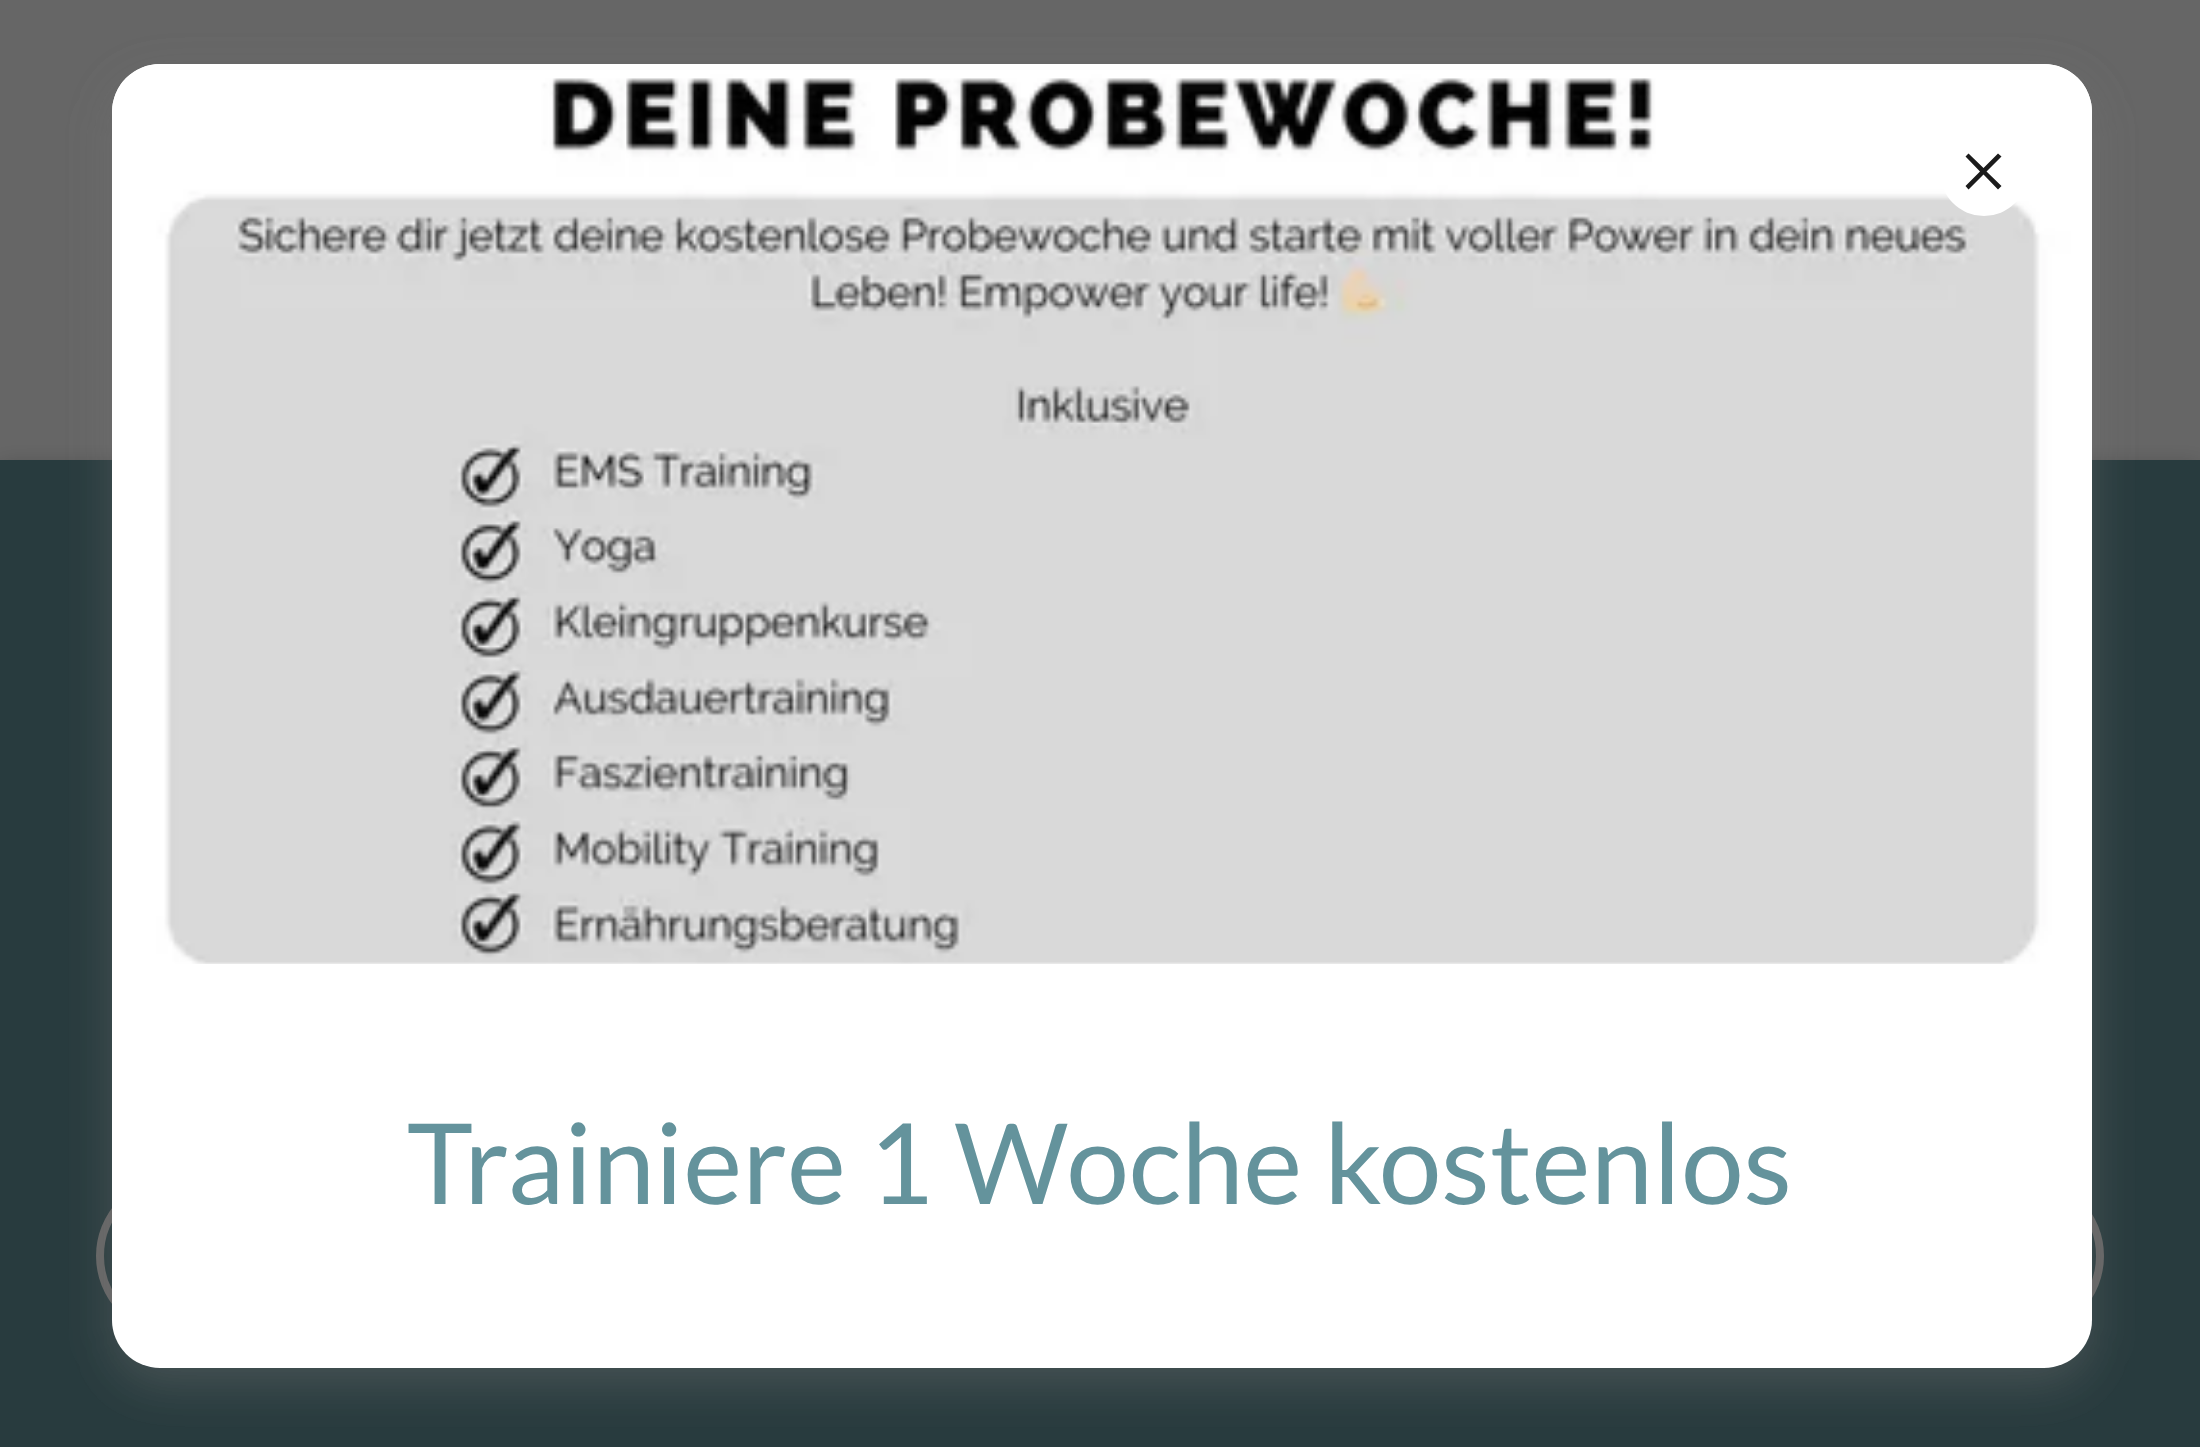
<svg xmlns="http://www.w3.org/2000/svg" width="2200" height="1447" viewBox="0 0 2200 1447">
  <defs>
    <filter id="blur1" x="-50%" y="-200%" width="200%" height="500%"><feGaussianBlur stdDeviation="12"/></filter>
    <filter id="blur2" x="-50%" y="-200%" width="200%" height="500%"><feGaussianBlur stdDeviation="24"/></filter>
  </defs>
  <rect width="100%" height="100%" fill="#666666"/>
  <rect x="0" y="468" width="2200" height="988" fill="#000000" fill-opacity="0.3" filter="url(#blur1)"/>
  <rect x="0" y="460" width="2200" height="987" fill="#283b3e"/>
  <rect x="100" y="1180" width="948" height="152" rx="76" fill="none" stroke="#666666" stroke-width="8"/>
  <rect x="1152" y="1180" width="948" height="152" rx="76" fill="none" stroke="#666666" stroke-width="8"/>
  <rect x="112" y="80" width="1980" height="1304" rx="48" fill="#757575" fill-opacity="0.4" filter="url(#blur2)"/>
  <rect x="112" y="64" width="1980" height="1304" rx="48" fill="#ffffff"/>
  <image x="112" y="64" width="1980" height="900" href="img1.png"/>
  <circle cx="1984" cy="172" r="44" fill="#ffffff"/>
  <path d="M1998 153.5L1983.5 168L1968.5 153.5L1965.5 156.5L1980 171.5L1965.5 186L1968.5 189.5L1983.5 174.5L1998 189.5L2001.5 186L1986.5 171.5L2001.5 156.5Z" fill="#1b1b1b" fill-rule="evenodd"/>
  <text x="407" y="1204" font-family="Lato" font-size="112" fill="#64939c">Trainiere 1 Woche kostenlos</text>
</svg>
